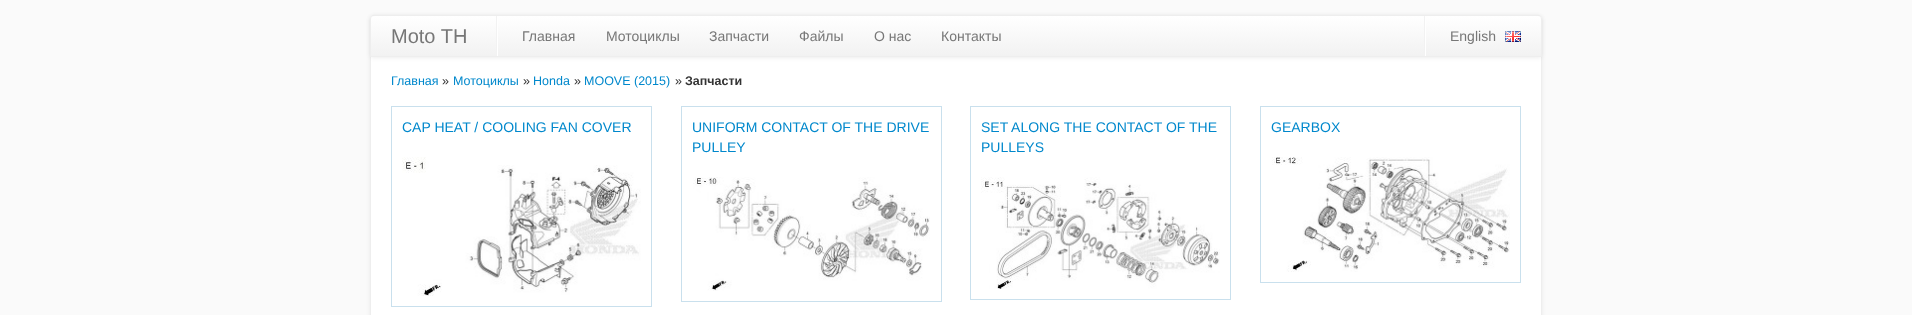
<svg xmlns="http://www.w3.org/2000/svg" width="1912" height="315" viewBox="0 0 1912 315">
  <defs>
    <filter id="blur1" x="-50%" y="-200%" width="200%" height="500%"><feGaussianBlur stdDeviation="2"/></filter>
    <clipPath id="clip1"><path d="M374 15H1538C1540 15 1542 17 1542 19V57H370V19C370 17 372 15 374 15Z"/></clipPath>
    <linearGradient id="g1" gradientUnits="userSpaceOnUse" x1="956" y1="16" x2="956" y2="56"><stop offset="0" stop-color="#ffffff"/><stop offset="1" stop-color="#f2f2f2"/></linearGradient>
  </defs>
  <rect width="100%" height="100%" fill="#fafafa"/>
  <rect x="370" y="16" width="1172" height="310" rx="5" fill="#000000" fill-opacity="0.07" filter="url(#blur1)"/>
  <rect x="370.5" y="15.5" width="1171" height="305" rx="4.5" fill="#ffffff" stroke="#eeeeee"/>
  <rect x="370" y="16" width="1172" height="42" rx="4" fill="#000000" fill-opacity="0.07" filter="url(#blur1)"/>
  <g clip-path="url(#clip1)">
    <rect x="370" y="16" width="1172" height="40" fill="url(#g1)"/>
  </g>
  <path d="M374 15.5H1538C1540 15.5 1541.5 17 1541.5 19V56.5H370.5V19C370.5 17 372 15.5 374 15.5Z" fill="none" stroke="#eeeeee"/>
  <text x="391" y="43" font-family="Liberation Sans" font-size="20" fill="#777777">Moto TH</text>
  <rect x="497" y="16" width="1" height="40" fill="#ffffff"/>
  <rect x="496" y="16" width="1" height="40" fill="#f2f2f2"/>
  <text x="522" y="41" font-family="Liberation Sans" font-size="14" fill="#777777">Главная</text>
  <text x="606" y="41" font-family="Liberation Sans" font-size="14" fill="#777777">Мотоциклы</text>
  <text x="709" y="41" font-family="Liberation Sans" font-size="14" fill="#777777">Запчасти</text>
  <text x="799" y="41" font-family="Liberation Sans" font-size="14" fill="#777777">Файлы</text>
  <text x="874" y="41" font-family="Liberation Sans" font-size="14" fill="#777777">О нас</text>
  <text x="941" y="41" font-family="Liberation Sans" font-size="14" fill="#777777">Контакты</text>
  <rect x="1425" y="16" width="1" height="40" fill="#ffffff"/>
  <rect x="1424" y="16" width="1" height="40" fill="#f2f2f2"/>
  <image x="1505" y="31" width="16" height="11" href="img1.png"/>
  <text x="1450" y="41" font-family="Liberation Sans" font-size="14" fill="#777777">English</text>
  <text x="391" y="85" font-family="Liberation Sans" font-size="12.5" fill="#0088cc">Главная</text>
  <text x="442" y="85" font-family="Liberation Sans" font-size="12.5" fill="#333333">»</text>
  <text x="453" y="85" font-family="Liberation Sans" font-size="12.5" fill="#0088cc">Мотоциклы</text>
  <text x="523" y="85" font-family="Liberation Sans" font-size="12.5" fill="#333333">»</text>
  <text x="533" y="85" font-family="Liberation Sans" font-size="12.5" fill="#0088cc">Honda</text>
  <text x="574" y="85" font-family="Liberation Sans" font-size="12.5" fill="#333333">»</text>
  <text x="584" y="85" font-family="Liberation Sans" font-size="12.5" fill="#0088cc">MOOVE (2015)</text>
  <text x="675" y="85" font-family="Liberation Sans" font-size="12.5" fill="#333333">»</text>
  <text x="685" y="85" font-family="Liberation Sans" font-size="12.5" font-weight="bold" fill="#333333">Запчасти</text>
  <rect x="391.5" y="106.5" width="260" height="200" fill="none" stroke="#c9e0ed"/>
  <text x="402" y="132" font-family="Liberation Sans" font-size="14" fill="#0088cc">CAP HEAT / COOLING FAN COVER</text>
  <image x="402" y="157" width="239" height="139" href="img2.png"/>
  <rect x="681.5" y="106.5" width="260" height="195" fill="none" stroke="#c9e0ed"/>
  <text x="692" y="132" font-family="Liberation Sans" font-size="14" fill="#0088cc">UNIFORM CONTACT OF THE DRIVE</text>
  <text x="692" y="152" font-family="Liberation Sans" font-size="14" fill="#0088cc">PULLEY</text>
  <image x="693" y="177" width="237" height="114" href="img3.png"/>
  <rect x="970.5" y="106.5" width="260" height="193" fill="none" stroke="#c9e0ed"/>
  <text x="981" y="132" font-family="Liberation Sans" font-size="14" fill="#0088cc">SET ALONG THE CONTACT OF THE</text>
  <text x="981" y="152" font-family="Liberation Sans" font-size="14" fill="#0088cc">PULLEYS</text>
  <image x="981" y="177" width="239" height="112" href="img4.png"/>
  <rect x="1260.5" y="106.5" width="260" height="176" fill="none" stroke="#c9e0ed"/>
  <text x="1271" y="132" font-family="Liberation Sans" font-size="14" fill="#0088cc">GEARBOX</text>
  <image x="1272" y="157" width="238" height="115" href="img5.png"/>
</svg>
